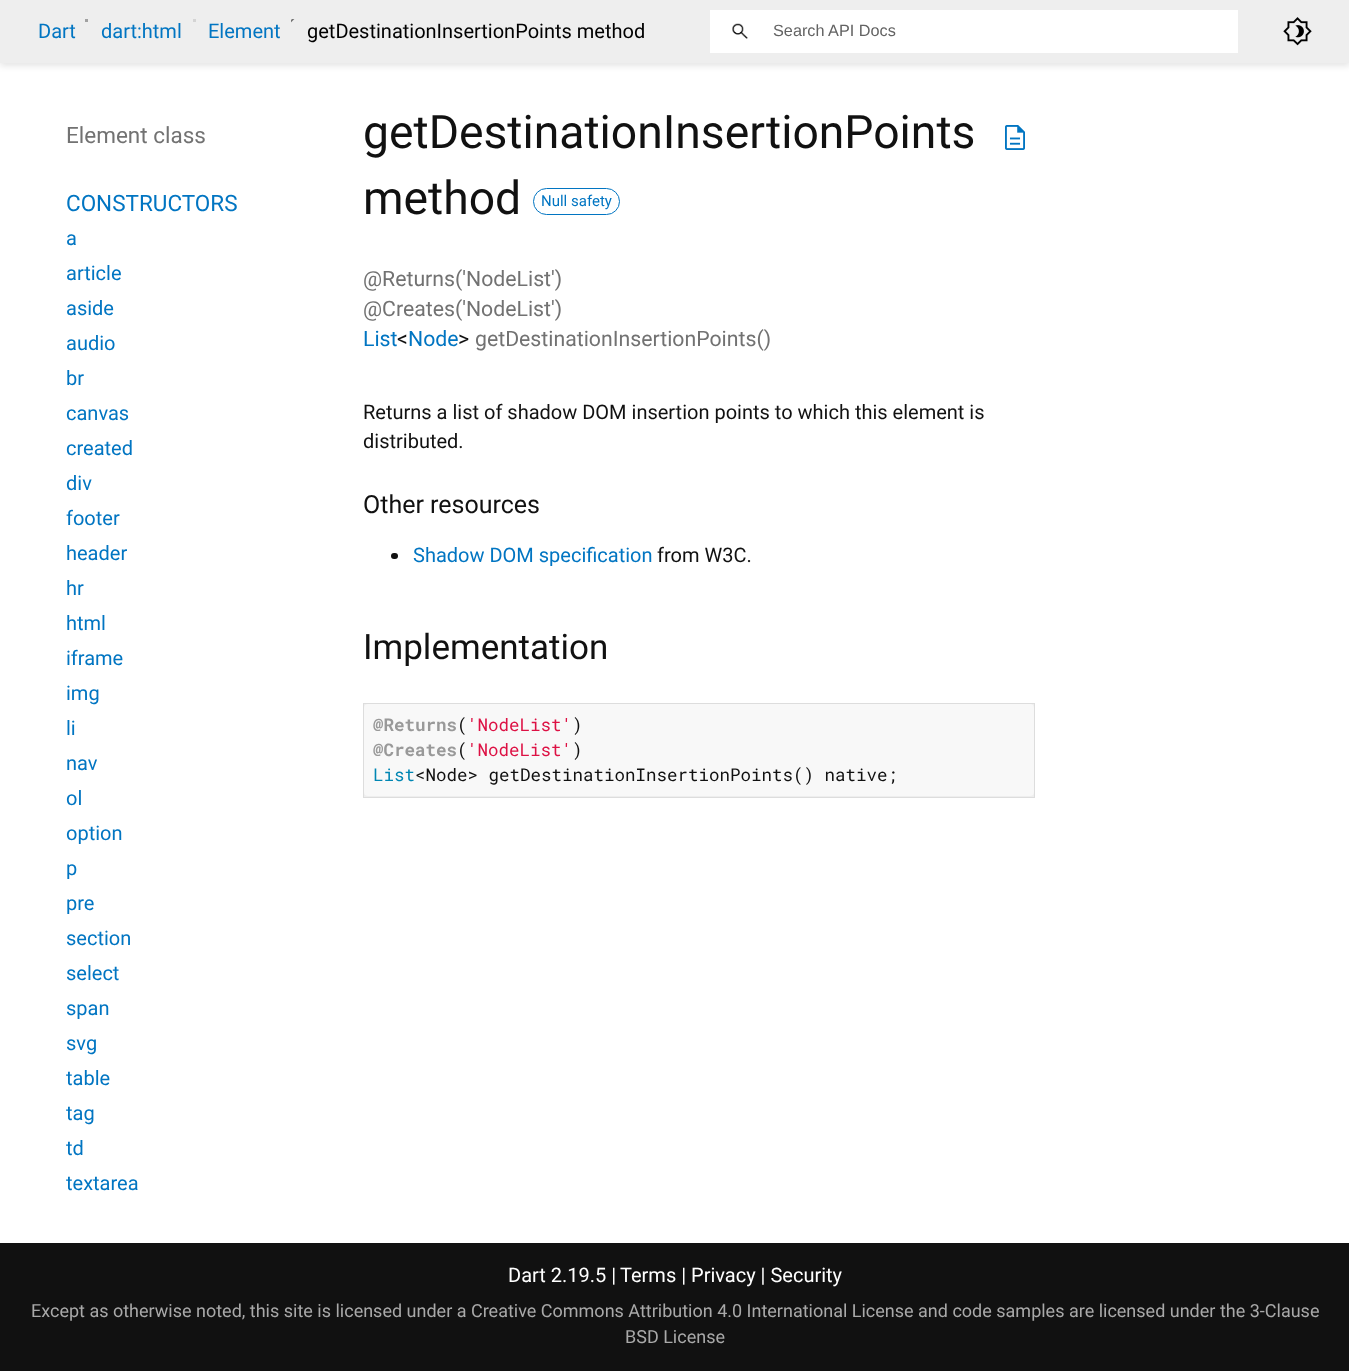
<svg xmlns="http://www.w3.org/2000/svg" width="1349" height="1371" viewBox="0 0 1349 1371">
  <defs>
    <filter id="blur1" x="-50%" y="-200%" width="200%" height="500%"><feGaussianBlur stdDeviation="3"/></filter>
  </defs>
  <rect width="100%" height="100%" fill="#ffffff"/>
  <rect x="0" y="4" width="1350" height="62" fill="#000000" fill-opacity="0.1" filter="url(#blur1)"/>
  <rect x="0" y="0" width="1349" height="63" fill="#eeeeee"/>
  <text x="38" y="38" font-family="Roboto" font-size="20" fill="#0175c2">Dart</text>
  <rect x="85" y="19" width="3" height="3" fill="#a1a1a1"/>
  <text x="101" y="38" font-family="Roboto" font-size="20" fill="#0175c2">dart:html</text>
  <rect x="193" y="19" width="3" height="3" fill="#d4d4d4"/>
  <text x="208" y="38" font-family="Roboto" font-size="20" fill="#0175c2">Element</text>
  <image x="291" y="19" width="4" height="4" href="img1.png"/>
  <text x="307" y="38" font-family="Roboto" font-size="20" fill="#000000">getDestinationInsertionPoints method</text>
  <rect x="710" y="10" width="528" height="43" fill="#ffffff"/>
  <image x="732" y="23" width="16" height="16" href="img2.png"/>
  <text x="773" y="36" font-family="Liberation Sans" font-size="16.25" fill="#636363">Search API Docs</text>
  <image x="1283" y="17" width="29" height="29" href="img3.png"/>
  <text x="66" y="143" font-family="Roboto" font-size="22.5" fill="#727272">Element class</text>
  <text x="66" y="211" font-family="Roboto" font-size="22.5" fill="#0175c2">CONSTRUCTORS</text>
  <text x="66" y="245" font-family="Roboto" font-size="20" fill="#0175c2">a</text>
  <text x="66" y="280" font-family="Roboto" font-size="20" fill="#0175c2">article</text>
  <text x="66" y="315" font-family="Roboto" font-size="20" fill="#0175c2">aside</text>
  <text x="66" y="350" font-family="Roboto" font-size="20" fill="#0175c2">audio</text>
  <text x="66" y="385" font-family="Roboto" font-size="20" fill="#0175c2">br</text>
  <text x="66" y="420" font-family="Roboto" font-size="20" fill="#0175c2">canvas</text>
  <text x="66" y="455" font-family="Roboto" font-size="20" fill="#0175c2">created</text>
  <text x="66" y="490" font-family="Roboto" font-size="20" fill="#0175c2">div</text>
  <text x="66" y="525" font-family="Roboto" font-size="20" fill="#0175c2">footer</text>
  <text x="66" y="560" font-family="Roboto" font-size="20" fill="#0175c2">header</text>
  <text x="66" y="595" font-family="Roboto" font-size="20" fill="#0175c2">hr</text>
  <text x="66" y="630" font-family="Roboto" font-size="20" fill="#0175c2">html</text>
  <text x="66" y="665" font-family="Roboto" font-size="20" fill="#0175c2">iframe</text>
  <text x="66" y="700" font-family="Roboto" font-size="20" fill="#0175c2">img</text>
  <text x="66" y="735" font-family="Roboto" font-size="20" fill="#0175c2">li</text>
  <text x="66" y="770" font-family="Roboto" font-size="20" fill="#0175c2">nav</text>
  <text x="66" y="805" font-family="Roboto" font-size="20" fill="#0175c2">ol</text>
  <text x="66" y="840" font-family="Roboto" font-size="20" fill="#0175c2">option</text>
  <text x="66" y="875" font-family="Roboto" font-size="20" fill="#0175c2">p</text>
  <text x="66" y="910" font-family="Roboto" font-size="20" fill="#0175c2">pre</text>
  <text x="66" y="945" font-family="Roboto" font-size="20" fill="#0175c2">section</text>
  <text x="66" y="980" font-family="Roboto" font-size="20" fill="#0175c2">select</text>
  <text x="66" y="1015" font-family="Roboto" font-size="20" fill="#0175c2">span</text>
  <text x="66" y="1050" font-family="Roboto" font-size="20" fill="#0175c2">svg</text>
  <text x="66" y="1085" font-family="Roboto" font-size="20" fill="#0175c2">table</text>
  <text x="66" y="1120" font-family="Roboto" font-size="20" fill="#0175c2">tag</text>
  <text x="66" y="1155" font-family="Roboto" font-size="20" fill="#0175c2">td</text>
  <text x="66" y="1190" font-family="Roboto" font-size="20" fill="#0175c2">textarea</text>
  <text x="363" y="148" font-family="Roboto" font-size="46.25" fill="#111111">getDestinationInsertionPoints</text>
  <text x="363" y="214" font-family="Roboto" font-size="46.25" fill="#111111">method</text>
  <rect x="533.5" y="188.5" width="86" height="26" rx="13" fill="none" stroke="#0175c2"/>
  <text x="541" y="206" font-family="Roboto" font-size="15" fill="#0175c2">Null safety</text>
  <image x="1005" y="125" width="20" height="25" href="img4.png"/>
  <text x="363" y="286" font-family="Roboto" font-size="21.25" fill="#727272">@Returns('NodeList')</text>
  <text x="363" y="316" font-family="Roboto" font-size="21.25" fill="#727272">@Creates('NodeList')</text>
  <text x="363" y="346" font-family="Roboto" font-size="21.25" fill="#0175c2">List</text>
  <text x="397" y="346" font-family="Roboto" font-size="21.25" fill="#111111">&lt;</text>
  <text x="408" y="346" font-family="Roboto" font-size="21.25" fill="#0175c2">Node</text>
  <text x="458" y="346" font-family="Roboto" font-size="21.25" fill="#111111">&gt;</text>
  <text x="475" y="346" font-family="Roboto" font-size="21.25" fill="#727272">getDestinationInsertionPoints()</text>
  <text x="363" y="419" font-family="Roboto" font-size="20" fill="#111111">Returns a list of shadow DOM insertion points to which this element is</text>
  <text x="363" y="448" font-family="Roboto" font-size="20" fill="#111111">distributed.</text>
  <text x="363" y="513" font-family="Roboto" font-size="25" fill="#111111">Other resources</text>
  <rect x="391" y="553" width="7" height="6" rx="3" fill="#111111"/>
  <text x="413" y="562" font-family="Roboto" font-size="20" fill="#0175c2">Shadow DOM specification</text>
  <text x="657" y="562" font-family="Roboto" font-size="20" fill="#111111">from W3C.</text>
  <text x="363" y="659" font-family="Roboto" font-size="35" fill="#111111">Implementation</text>
  <rect x="363.5" y="703.5" width="671" height="94" fill="#eeeeee" stroke="#dddddd"/>
  <rect x="364" y="704" width="670" height="92" rx="4" fill="#f8f8f8"/>
  <text x="373" y="731" font-family="Roboto Mono" font-size="17.5" font-weight="bold" fill="#999999">@Returns</text>
  <text x="457" y="731" font-family="Roboto Mono" font-size="17.5" fill="#111111">(</text>
  <text x="467" y="731" font-family="Roboto Mono" font-size="17.5" fill="#dd1144">'NodeList'</text>
  <text x="572" y="731" font-family="Roboto Mono" font-size="17.5" fill="#111111">)</text>
  <text x="373" y="756" font-family="Roboto Mono" font-size="17.5" font-weight="bold" fill="#999999">@Creates</text>
  <text x="457" y="756" font-family="Roboto Mono" font-size="17.5" fill="#111111">(</text>
  <text x="467" y="756" font-family="Roboto Mono" font-size="17.5" fill="#dd1144">'NodeList'</text>
  <text x="572" y="756" font-family="Roboto Mono" font-size="17.5" fill="#111111">)</text>
  <text x="373" y="781" font-family="Roboto Mono" font-size="17.5" fill="#0086b3">List</text>
  <text x="415" y="781" font-family="Roboto Mono" font-size="17.5" fill="#111111">&lt;Node&gt; getDestinationInsertionPoints() native;</text>
  <rect x="0" y="1243" width="1349" height="128" fill="#111111"/>
  <text x="620" y="1282" font-family="Roboto" font-size="20" fill="#ffffff">Terms | Privacy | Security</text>
  <text x="31" y="1317" font-family="Roboto" font-size="18" fill="#a9a9a9">Except as otherwise noted, this site is licensed under a Creative Commons Attribution 4.0 International License and code samples are licensed under the 3-Clause</text>
  <text x="625" y="1343" font-family="Roboto" font-size="18" fill="#a9a9a9">BSD License</text>
  <text x="508" y="1282" font-family="Roboto" font-size="20" fill="#ffffff">Dart 2.19.5 |</text>
</svg>
